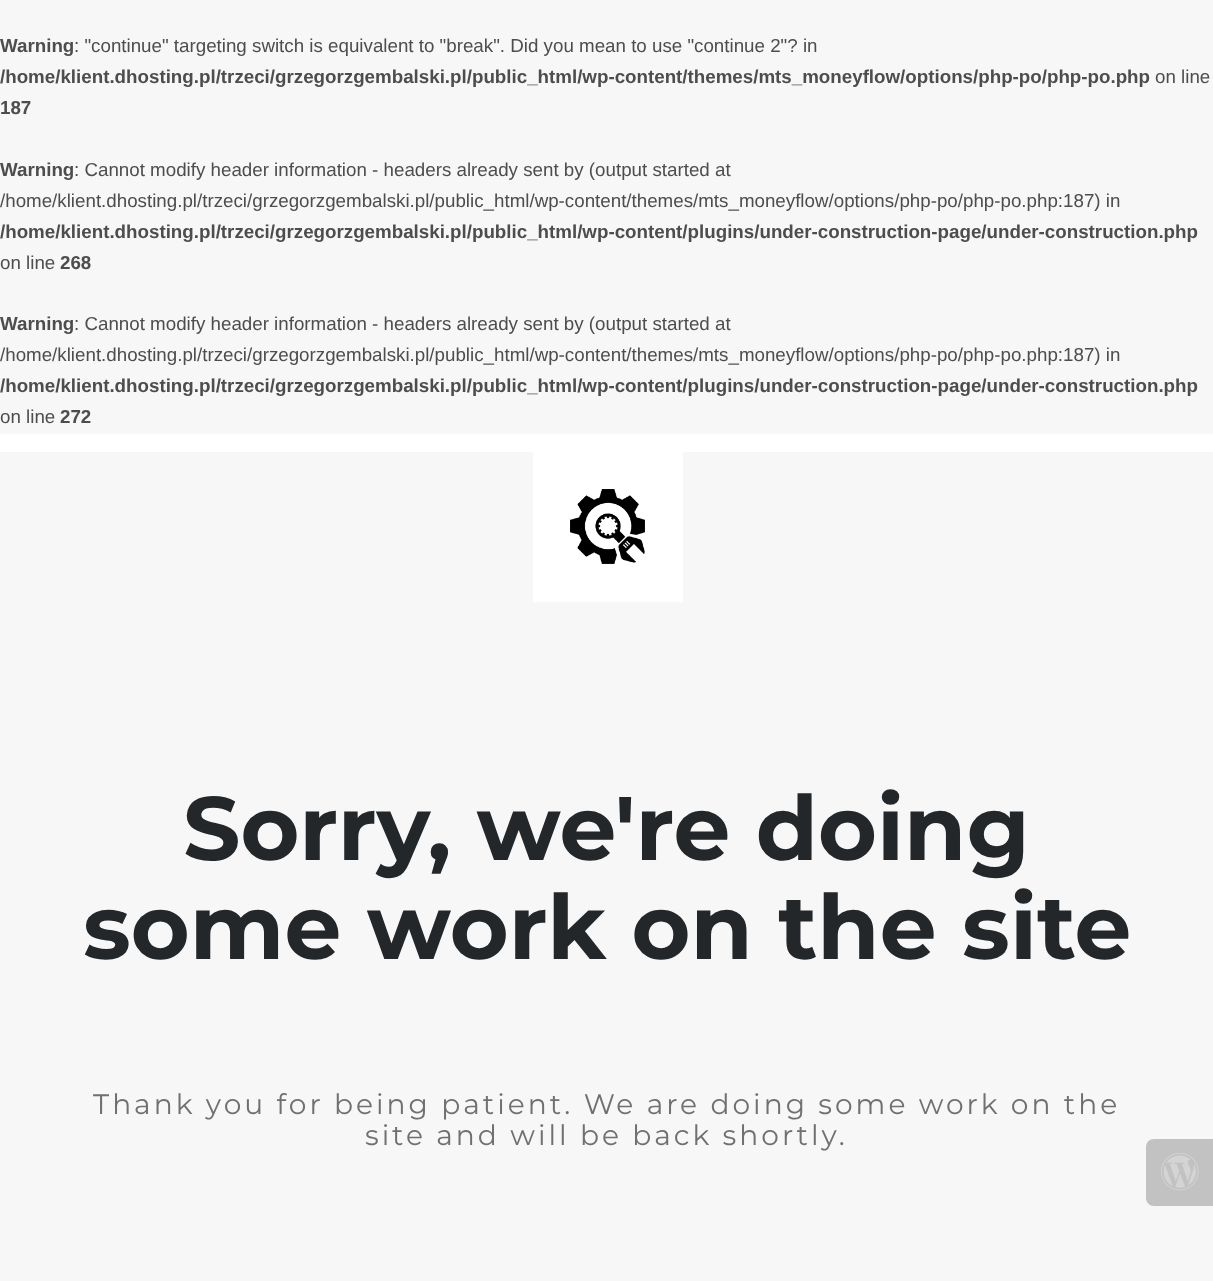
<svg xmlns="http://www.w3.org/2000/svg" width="1213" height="1281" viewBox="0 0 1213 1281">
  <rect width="100%" height="100%" fill="#f7f7f7"/>
  <text x="0" y="52" font-family="Liberation Sans" font-size="18.75" font-weight="bold" fill="#4d4d4d">Warning</text>
  <text x="74" y="52" font-family="Liberation Sans" font-size="18.75" fill="#4d4d4d">: "continue" targeting switch is equivalent to "break". Did you mean to use "continue 2"? in</text>
  <text x="0" y="83" font-family="Liberation Sans" font-size="18.75" font-weight="bold" fill="#4d4d4d">/home/klient.dhosting.pl/trzeci/grzegorzgembalski.pl/public_html/wp-content/themes/mts_moneyflow/options/php-po/php-po.php</text>
  <text x="1155" y="83" font-family="Liberation Sans" font-size="18.75" fill="#4d4d4d">on line</text>
  <text x="0" y="114" font-family="Liberation Sans" font-size="18.75" font-weight="bold" fill="#4d4d4d">187</text>
  <text x="0" y="176" font-family="Liberation Sans" font-size="18.75" font-weight="bold" fill="#4d4d4d">Warning</text>
  <text x="74" y="176" font-family="Liberation Sans" font-size="18.75" fill="#4d4d4d">: Cannot modify header information - headers already sent by (output started at</text>
  <text x="0" y="207" font-family="Liberation Sans" font-size="18.75" fill="#4d4d4d">/home/klient.dhosting.pl/trzeci/grzegorzgembalski.pl/public_html/wp-content/themes/mts_moneyflow/options/php-po/php-po.php:187) in</text>
  <text x="0" y="238" font-family="Liberation Sans" font-size="18.75" font-weight="bold" fill="#4d4d4d">/home/klient.dhosting.pl/trzeci/grzegorzgembalski.pl/public_html/wp-content/plugins/under-construction-page/under-construction.php</text>
  <text x="0" y="269" font-family="Liberation Sans" font-size="18.75" fill="#4d4d4d">on line</text>
  <text x="60" y="269" font-family="Liberation Sans" font-size="18.75" font-weight="bold" fill="#4d4d4d">268</text>
  <text x="0" y="330" font-family="Liberation Sans" font-size="18.75" font-weight="bold" fill="#4d4d4d">Warning</text>
  <text x="74" y="330" font-family="Liberation Sans" font-size="18.75" fill="#4d4d4d">: Cannot modify header information - headers already sent by (output started at</text>
  <text x="0" y="361" font-family="Liberation Sans" font-size="18.75" fill="#4d4d4d">/home/klient.dhosting.pl/trzeci/grzegorzgembalski.pl/public_html/wp-content/themes/mts_moneyflow/options/php-po/php-po.php:187) in</text>
  <text x="0" y="392" font-family="Liberation Sans" font-size="18.75" font-weight="bold" fill="#4d4d4d">/home/klient.dhosting.pl/trzeci/grzegorzgembalski.pl/public_html/wp-content/plugins/under-construction-page/under-construction.php</text>
  <text x="0" y="423" font-family="Liberation Sans" font-size="18.75" fill="#4d4d4d">on line</text>
  <text x="60" y="423" font-family="Liberation Sans" font-size="18.75" font-weight="bold" fill="#4d4d4d">272</text>
  <rect x="0" y="434" width="1213" height="18" fill="#ffffff"/>
  <rect x="533" y="452" width="150" height="150" fill="#ffffff"/>
  <image x="570" y="489" width="75" height="75" href="img1.png"/>
  <text x="183" y="860" font-family="Montserrat" font-size="90" font-weight="100" fill="#23272a">Sorry, we're doing</text>
  <text x="83" y="959" font-family="Montserrat" font-size="90" font-weight="100" fill="#23272a">some work on the site</text>
  <text x="93" y="1114" font-family="'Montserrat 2'" font-size="28.1" font-weight="100" letter-spacing="3" fill="#707070">Thank you for being patient. We are doing some work on the</text>
  <text x="365" y="1145" font-family="'Montserrat 2'" font-size="28.1" font-weight="100" letter-spacing="3" fill="#707070">site and will be back shortly.</text>
  <path d="M1154 1139H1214V1206H1154C1149.5 1206 1146 1202.5 1146 1198V1147C1146 1142.5 1149.5 1139 1154 1139Z" fill="#c2c2c2"/>
  <image x="1161" y="1153" width="38" height="38" href="img2.png"/>
</svg>
